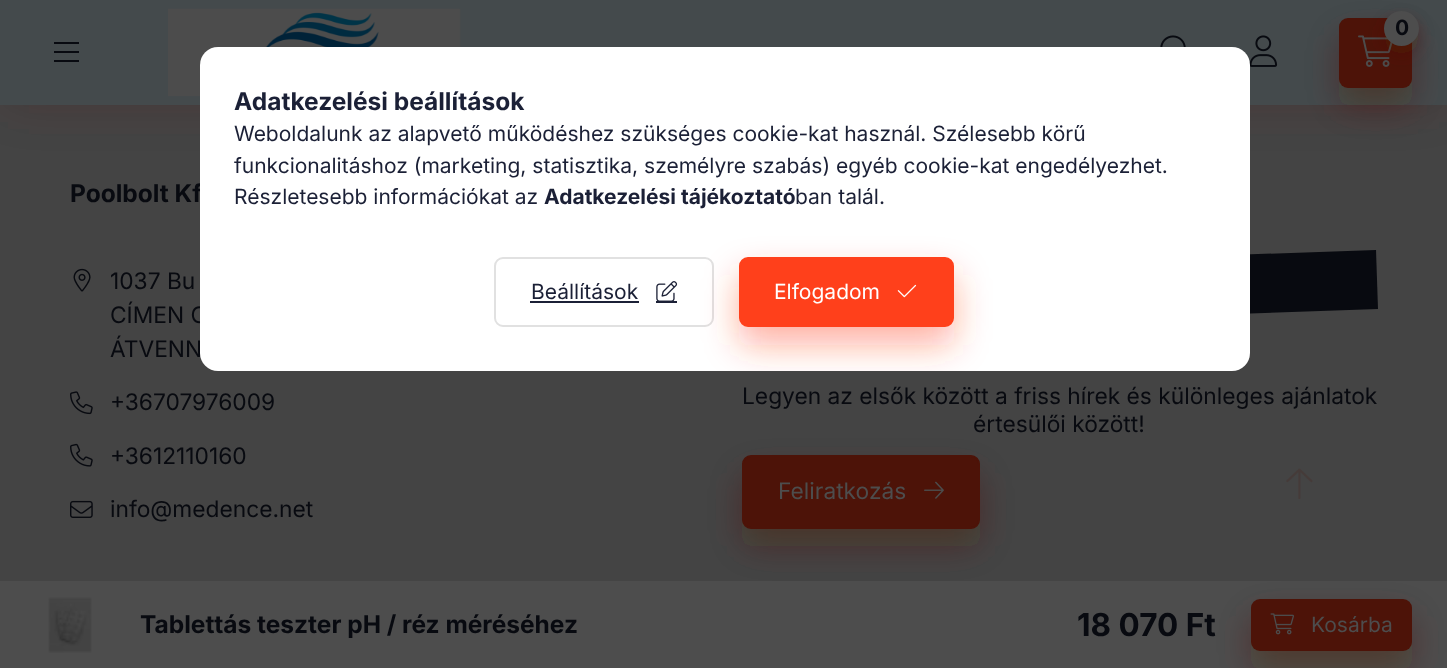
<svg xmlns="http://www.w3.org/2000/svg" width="1447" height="668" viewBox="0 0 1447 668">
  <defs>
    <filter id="blur1" x="-50%" y="-200%" width="200%" height="500%"><feGaussianBlur stdDeviation="26"/></filter>
    <filter id="blur2" x="-50%" y="-200%" width="200%" height="500%"><feGaussianBlur stdDeviation="17.5"/></filter>
    <filter id="blur3" x="-50%" y="-200%" width="200%" height="500%"><feGaussianBlur stdDeviation="9"/></filter>
    <clipPath id="clip1"><rect x="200" y="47" width="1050" height="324" rx="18"/></clipPath>
  </defs>
  <rect width="100%" height="100%" fill="#444444"/>
  <rect x="0" y="0" width="1447" height="105" fill="#4d1308" fill-opacity="0.2" filter="url(#blur1)"/>
  <rect x="0" y="0" width="1447" height="105" fill="#444a4c"/>
  <rect x="54" y="42" width="25" height="2" fill="#080a10"/>
  <rect x="54" y="51" width="25" height="2" fill="#080a10"/>
  <rect x="54" y="60" width="25" height="2" fill="#080a10"/>
  <image x="168" y="8" width="293" height="89" href="img1.png"/>
  <rect x="1339" y="35" width="73" height="70" rx="9" fill="#4d1308" fill-opacity="0.4" filter="url(#blur2)"/>
  <rect x="1339" y="18" width="73" height="70" rx="9" fill="#4d1308"/>
  <image x="1358" y="35" width="35" height="32" href="img2.png"/>
  <rect x="1384" y="19" width="35" height="35" rx="17.5" fill="#4d1308" fill-opacity="0.4" filter="url(#blur3)"/>
  <circle cx="1401.5" cy="28.5" r="17.5" fill="#4d4d4d"/>
  <text x="1395" y="35" font-family="Inter" font-size="21" font-weight="bold" fill="#080a10">0</text>
  <image x="1160" y="35" width="26" height="12" href="img3.png"/>
  <image x="1249" y="35" width="29" height="32" href="img4.png"/>
  <text x="70" y="202" font-family="Inter" font-size="24.5" font-weight="bold" fill="#080a10">Poolbolt Kf</text>
  <image x="73" y="268" width="18" height="24" href="img5.png"/>
  <text x="110" y="289" font-family="Inter" font-size="22.75" fill="#080a10">1037 Bu</text>
  <text x="110" y="323" font-family="Inter" font-size="22.75" fill="#080a10">CÍMEN C</text>
  <text x="110" y="357" font-family="Inter" font-size="22.75" fill="#080a10">ÁTVENN</text>
  <image x="70" y="391" width="23" height="24" href="img6.png"/>
  <text x="110" y="410" font-family="Inter" font-size="22.75" fill="#080a10">+36707976009</text>
  <image x="70" y="443" width="23" height="24" href="img7.png"/>
  <text x="110" y="464" font-family="Inter" font-size="22.75" fill="#080a10">+3612110160</text>
  <image x="70" y="500" width="23" height="18" href="img8.png"/>
  <text x="110" y="517" font-family="Inter" font-size="22.75" fill="#080a10">info@medence.net</text>
  <path d="M740 272L1376 250L1378 309L742 331Z" fill="#080a10"/>
  <text x="742" y="404" font-family="Inter" font-size="22.75" fill="#080a10">Legyen az elsők között a friss hírek és különleges ajánlatok</text>
  <text x="973" y="432" font-family="Inter" font-size="22.75" fill="#080a10">értesülői között!</text>
  <rect x="742" y="473" width="238" height="73" rx="9" fill="#4d1308" fill-opacity="0.4" filter="url(#blur2)"/>
  <rect x="743" y="456" width="236" height="72" rx="8" fill="#4d1308" stroke="#4d1308" stroke-width="2"/>
  <text x="778" y="499" font-family="Inter" font-size="22.75" fill="#4d4d4d">Feliratkozás</text>
  <image x="924" y="481" width="20" height="18" href="img9.png"/>
  <rect x="0" y="581" width="1447" height="87" fill="#4d4d4d"/>
  <image x="48" y="597" width="44" height="56" href="img10.png"/>
  <text x="140" y="633" font-family="Inter" font-size="24.5" font-weight="bold" fill="#080a10">Tablettás teszter pH / réz méréséhez</text>
  <text x="1077" y="636" font-family="Inter" font-size="31.5" font-weight="bold" fill="#080a10">18 070 Ft</text>
  <rect x="1251" y="616" width="161" height="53" rx="9" fill="#4d1308" fill-opacity="0.4" filter="url(#blur2)"/>
  <rect x="1251" y="599" width="161" height="52" rx="9" fill="#4d1308"/>
  <image x="1270" y="613" width="24" height="22" href="img11.png"/>
  <text x="1311" y="632" font-family="Inter" font-size="21" fill="#4d4d4d">Kosárba</text>
  <rect x="200" y="47" width="1050" height="324" rx="18" fill="#ffffff"/>
  <text x="234" y="110" font-family="Inter" font-size="24.5" font-weight="bold" fill="#1b2036">Adatkezelési beállítások</text>
  <text x="234" y="141" font-family="Inter" font-size="21" fill="#1b2036">Weboldalunk az alapvető működéshez szükséges cookie-kat használ. Szélesebb körű</text>
  <text x="234" y="173" font-family="Inter" font-size="21" fill="#1b2036">funkcionalitáshoz (marketing, statisztika, személyre szabás) egyéb cookie-kat engedélyezhet.</text>
  <text x="234" y="204" font-family="Inter" font-size="21" fill="#1b2036">Részletesebb információkat az</text>
  <text x="544" y="204" font-family="Inter" font-size="21" font-weight="bold" fill="#1b2036">Adatkezelési tájékoztató</text>
  <text x="795" y="204" font-family="Inter" font-size="21" fill="#1b2036">ban talál.</text>
  <rect x="495" y="258" width="218" height="68" rx="8" fill="none" stroke="#e1e1e1" stroke-width="2"/>
  <text x="531" y="299" font-family="Inter" font-size="21" fill="#1b2036">Beállítások</text>
  <rect x="530" y="301" width="109" height="2" fill="#1b2036"/>
  <image x="656" y="281" width="22" height="20" href="img12.png"/>
  <rect x="656" y="301" width="21" height="2" fill="#1b2036"/>
  <g clip-path="url(#clip1)">
    <rect x="739" y="275" width="215" height="70" rx="9" fill="#ff401b" fill-opacity="0.4" filter="url(#blur2)"/>
  </g>
  <rect x="740" y="258" width="213" height="68" rx="8" fill="#ff401b" stroke="#ff401b" stroke-width="2"/>
  <text x="774" y="299" font-family="Inter" font-size="21" fill="#ffffff">Elfogadom</text>
  <image x="897" y="284" width="20" height="14" href="img13.png"/>
  <image x="1286" y="468" width="27" height="31" href="img14.png"/>
</svg>
